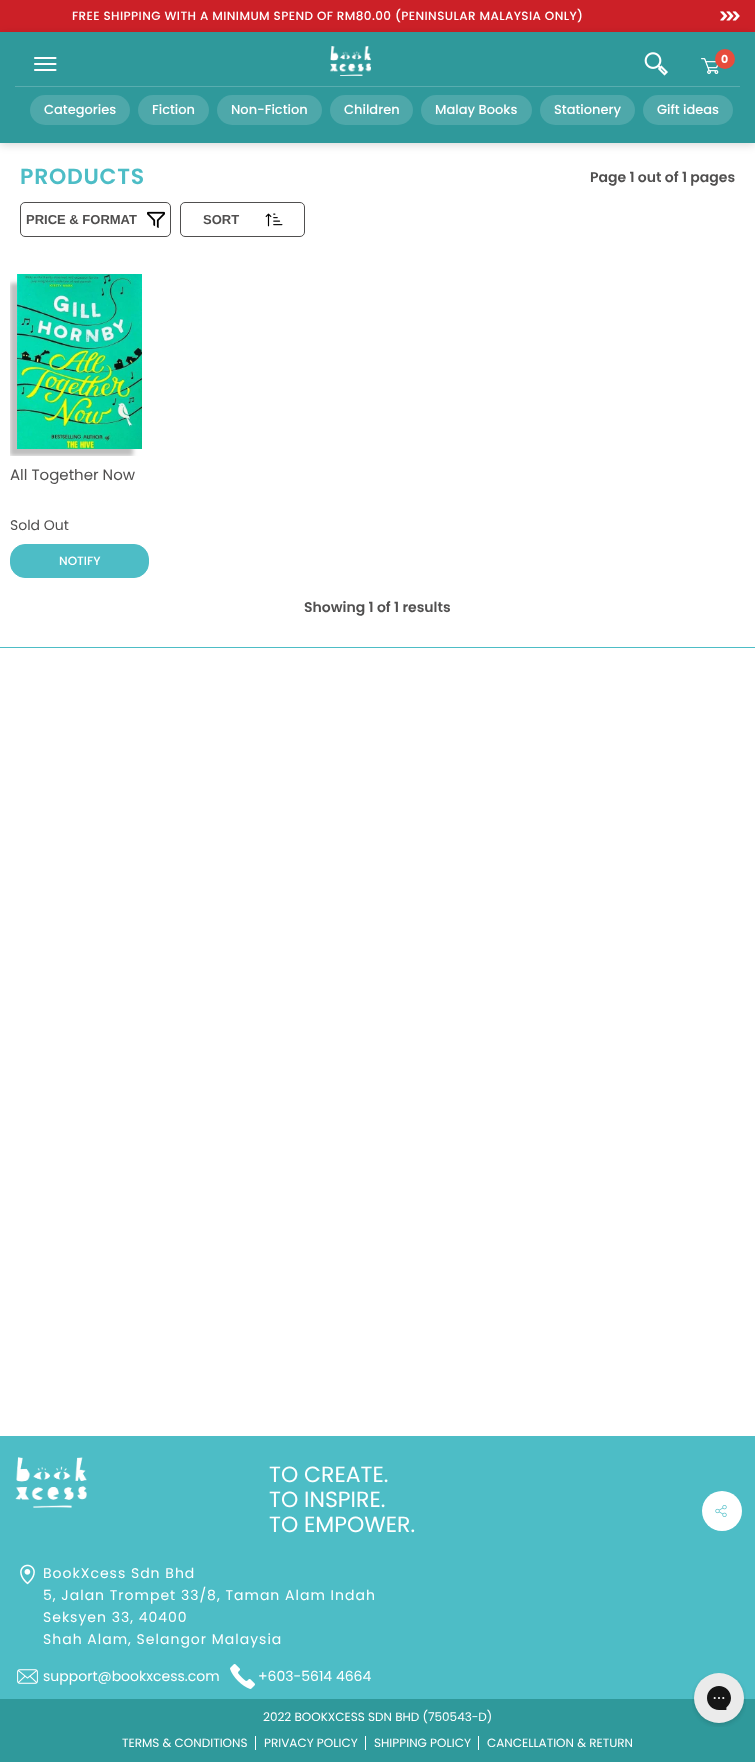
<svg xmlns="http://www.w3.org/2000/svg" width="755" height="1762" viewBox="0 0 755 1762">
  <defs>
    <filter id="blur1" x="-50%" y="-200%" width="200%" height="500%"><feGaussianBlur stdDeviation="4"/></filter>
    <clipPath id="clip1"><rect x="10" y="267" width="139" height="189"/></clipPath>
    <filter id="blur2" x="-50%" y="-200%" width="200%" height="500%"><feGaussianBlur stdDeviation="2"/></filter>
  </defs>
  <rect width="100%" height="100%" fill="#ffffff"/>
  <rect x="0" y="0" width="755" height="32" fill="#cc2027"/>
  <text x="72" y="20" font-family="Poppins" font-size="12" font-weight="500" letter-spacing="0.4" fill="#ffffff">FREE SHIPPING WITH A MINIMUM SPEND OF RM80.00 (PENINSULAR MALAYSIA ONLY)</text>
  <image x="720" y="11" width="20" height="10" href="img1.png"/>
  <rect x="0" y="34" width="755" height="111" fill="#000000" fill-opacity="0.15" filter="url(#blur1)"/>
  <rect x="0" y="32" width="755" height="111" fill="#2f999b"/>
  <path d="M35 58H55.5M35 64H55.5M35 70H55.5" fill="none" stroke="#ffffff" stroke-width="2.1" stroke-linecap="round"/>
  <image x="330" y="46" width="41" height="30" href="img2.png"/>
  <image x="644" y="52" width="24" height="24" href="img3.png"/>
  <image x="701" y="58" width="18" height="16" href="img4.png"/>
  <circle cx="725" cy="59" r="10" fill="#e74c3c"/>
  <text x="721" y="63" font-family="Poppins" font-size="11" font-weight="bold" fill="#ffffff">0</text>
  <rect x="15" y="86" width="725" height="1" fill="#59adaf"/>
  <rect x="30" y="95" width="100" height="30" rx="15" fill="#4ea8aa"/>
  <text x="44" y="114" font-family="Poppins" font-size="13" font-weight="500" fill="#ffffff">Categories</text>
  <rect x="138" y="95" width="71" height="30" rx="15" fill="#4ea8aa"/>
  <text x="152" y="114" font-family="Poppins" font-size="13" font-weight="500" fill="#ffffff">Fiction</text>
  <rect x="217" y="95" width="105" height="30" rx="15" fill="#4ea8aa"/>
  <text x="231" y="114" font-family="Poppins" font-size="13" font-weight="500" fill="#ffffff">Non-Fiction</text>
  <rect x="330" y="95" width="83" height="30" rx="15" fill="#4ea8aa"/>
  <text x="344" y="114" font-family="Poppins" font-size="13" font-weight="500" fill="#ffffff">Children</text>
  <rect x="421" y="95" width="111" height="30" rx="15" fill="#4ea8aa"/>
  <text x="435" y="114" font-family="Poppins" font-size="13" font-weight="500" fill="#ffffff">Malay Books</text>
  <rect x="540" y="95" width="95" height="30" rx="15" fill="#4ea8aa"/>
  <text x="554" y="114" font-family="Poppins" font-size="13" font-weight="500" fill="#ffffff">Stationery</text>
  <rect x="643" y="95" width="90" height="30" rx="15" fill="#4ea8aa"/>
  <text x="657" y="114" font-family="Poppins" font-size="13" font-weight="500" fill="#ffffff">Gift ideas</text>
  <rect x="0" y="647" width="755" height="1" fill="#4dbdc6"/>
  <text x="20" y="184" font-family="Poppins" font-size="22" font-weight="600" letter-spacing="0.75" fill="#4dbdc6">PRODUCTS</text>
  <text x="590" y="182" font-family="Poppins" font-size="14" font-weight="600" fill="#504f4f">Page 1 out of 1 pages</text>
  <rect x="20.5" y="202.5" width="150" height="34" rx="4.5" fill="none" stroke="#504f4f"/>
  <text x="26" y="224" font-family="Liberation Sans" font-size="13" font-weight="bold" fill="#504f4f">PRICE &amp; FORMAT</text>
  <image x="147" y="211" width="18" height="17" href="img5.png"/>
  <rect x="180.5" y="202.5" width="124" height="34" rx="4.5" fill="none" stroke="#504f4f"/>
  <text x="203" y="224" font-family="Liberation Sans" font-size="13" font-weight="bold" fill="#504f4f">SORT</text>
  <image x="265" y="213" width="18" height="14" href="img6.png"/>
  <g clip-path="url(#clip1)">
    <rect x="10" y="283" width="123" height="173" fill="#000000" fill-opacity="0.25" filter="url(#blur2)"/>
  </g>
  <image x="17" y="274" width="125" height="175" href="img7.png"/>
  <text x="10" y="480" font-family="Poppins" font-size="15" fill="#504f4f">All Together Now</text>
  <text x="10" y="530" font-family="Poppins" font-size="14" fill="#504f4f">Sold Out</text>
  <rect x="10.5" y="544.5" width="138" height="33" rx="14.5" fill="#4dbdc6" stroke="#4dbdc6"/>
  <text x="59" y="565" font-family="Poppins" font-size="12" font-weight="500" fill="#ffffff">NOTIFY</text>
  <text x="304" y="612" font-family="Poppins" font-size="14" font-weight="600" fill="#504f4f">Showing 1 of 1 results</text>
  <rect x="0" y="1436" width="755" height="263" fill="#4dbdc6"/>
  <image x="15" y="1457" width="72" height="51" href="img8.png"/>
  <text x="269" y="1482" font-family="Poppins" font-size="22" fill="#ffffff">TO CREATE.</text>
  <text x="269" y="1507" font-family="Poppins" font-size="22" fill="#ffffff">TO INSPIRE.</text>
  <text x="269" y="1532" font-family="Poppins" font-size="22" fill="#ffffff">TO EMPOWER.</text>
  <image x="20" y="1564" width="15" height="21" href="img9.png"/>
  <text x="43" y="1578" font-family="Poppins" font-size="14" letter-spacing="1" fill="#ffffff">BookXcess Sdn Bhd</text>
  <text x="43" y="1600" font-family="Poppins" font-size="14" letter-spacing="1" fill="#ffffff">5, Jalan Trompet 33/8, Taman Alam Indah</text>
  <text x="43" y="1622" font-family="Poppins" font-size="14" letter-spacing="1" fill="#ffffff">Seksyen 33, 40400</text>
  <text x="43" y="1644" font-family="Poppins" font-size="14" letter-spacing="1" fill="#ffffff">Shah Alam, Selangor Malaysia</text>
  <circle cx="722" cy="1511" r="20" fill="#ffffff"/>
  <image x="715" y="1505" width="12" height="12" href="img10.png"/>
  <image x="17" y="1669" width="21" height="15" href="img11.png"/>
  <text x="43" y="1681" font-family="Poppins" font-size="14" fill="#ffffff">support@bookxcess.com</text>
  <image x="230" y="1664" width="25" height="25" href="img12.png"/>
  <text x="258" y="1681" font-family="Poppins" font-size="14" fill="#ffffff">+603-5614 4664</text>
  <rect x="0" y="1699" width="755" height="63" fill="#2f999b"/>
  <text x="263" y="1721" font-family="Poppins" font-size="12" fill="#ffffff">2022 BOOKXCESS SDN BHD (750543-D)</text>
  <text x="122" y="1747" font-family="Poppins" font-size="12" fill="#ffffff">TERMS &amp; CONDITIONS</text>
  <rect x="255" y="1736" width="1" height="14" fill="#ffffff"/>
  <text x="264" y="1747" font-family="Poppins" font-size="12" fill="#ffffff">PRIVACY POLICY</text>
  <rect x="365" y="1736" width="1" height="14" fill="#ffffff"/>
  <text x="374" y="1747" font-family="Poppins" font-size="12" fill="#ffffff">SHIPPING POLICY</text>
  <rect x="478" y="1736" width="1" height="14" fill="#ffffff"/>
  <text x="487" y="1747" font-family="Poppins" font-size="12" fill="#ffffff">CANCELLATION &amp; RETURN</text>
  <image x="692" y="1673" width="54" height="54" href="img13.png"/>
</svg>
